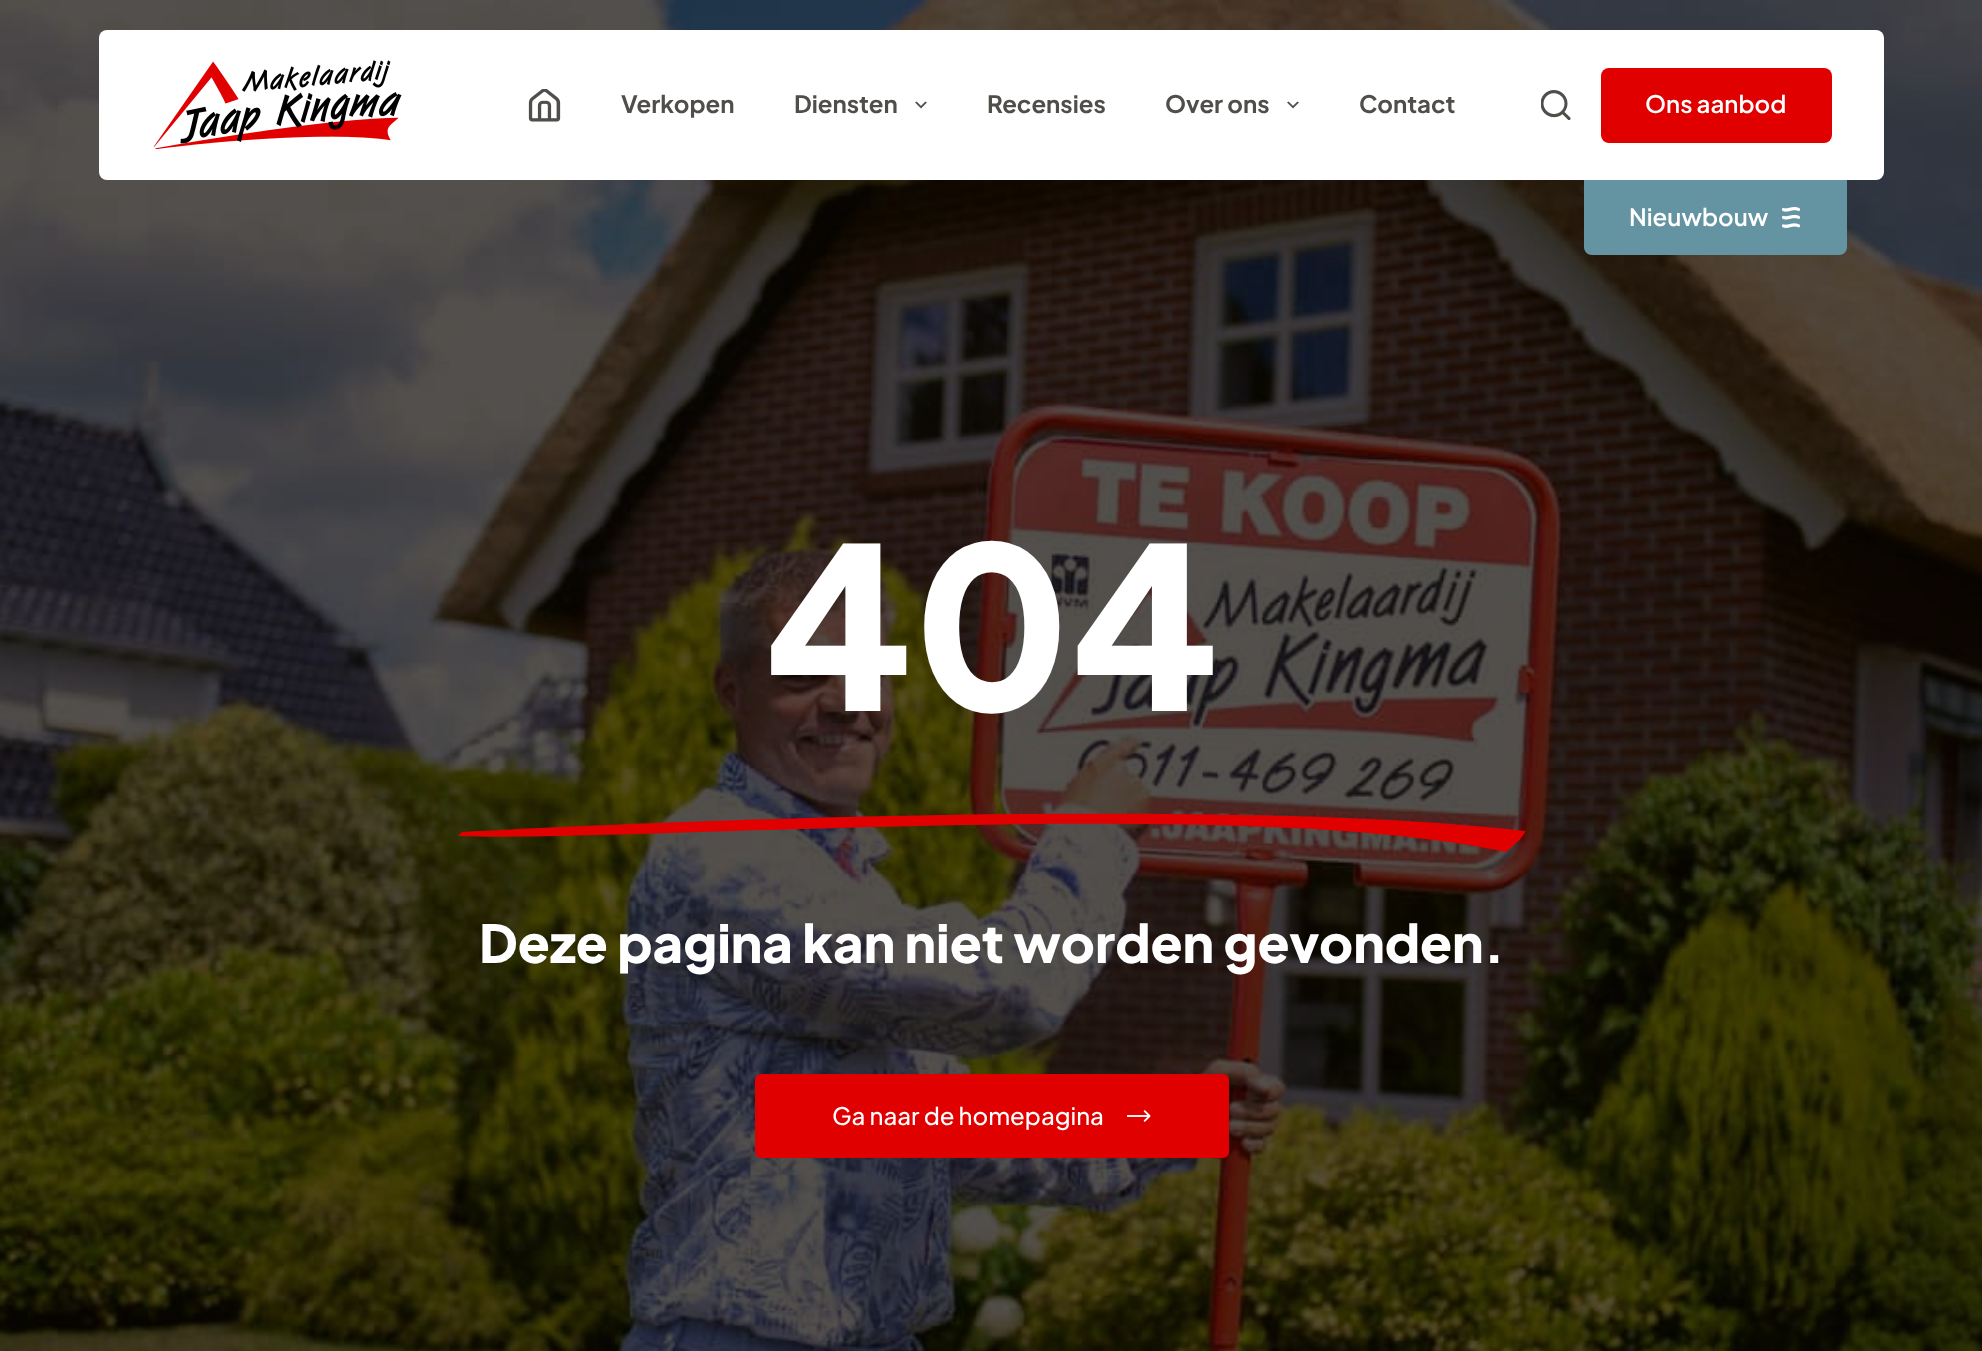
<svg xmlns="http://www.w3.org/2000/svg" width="1982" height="1351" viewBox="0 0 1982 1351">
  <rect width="100%" height="100%" fill="#ffffff"/>
  <image x="0" y="0" width="1982" height="1351" href="img6.png"/>
  <rect x="99" y="30" width="1785" height="150" rx="8" fill="#ffffff"/>
  <image x="153" y="60" width="249" height="90" href="img1.png"/>
  <image x="528" y="89" width="33" height="33" href="img2.png"/>
  <text x="621" y="113" font-family="Plus Jakarta Sans" font-size="24" font-weight="bold" fill="#504e4a">Verkopen</text>
  <text x="794" y="113" font-family="Plus Jakarta Sans" font-size="24" font-weight="bold" fill="#504e4a">Diensten</text>
  <image x="915" y="101" width="12" height="8" href="img3.png"/>
  <text x="987" y="113" font-family="Plus Jakarta Sans" font-size="24" font-weight="bold" fill="#504e4a">Recensies</text>
  <text x="1165" y="113" font-family="Plus Jakarta Sans" font-size="24" font-weight="bold" fill="#504e4a">Over ons</text>
  <image x="1287" y="101" width="12" height="8" href="img3.png"/>
  <text x="1359" y="113" font-family="Plus Jakarta Sans" font-size="24" font-weight="bold" fill="#504e4a">Contact</text>
  <image x="1541" y="90" width="30" height="30" href="img4.png"/>
  <rect x="1601" y="68" width="231" height="75" rx="8" fill="#e10000"/>
  <text x="1645" y="113" font-family="Plus Jakarta Sans" font-size="24" font-weight="600" fill="#ffffff">Ons aanbod</text>
  <path d="M1584 180H1847V247C1847 251.5 1843.5 255 1839 255H1592C1587.5 255 1584 251.5 1584 247Z" fill="#6493a2"/>
  <text x="1629" y="226" font-family="Plus Jakarta Sans" font-size="24" font-weight="600" fill="#ffffff">Nieuwbouw</text>
  <image x="1782" y="207" width="18" height="21" href="img5.png"/>
  <text x="764" y="711" font-family="Plus Jakarta Sans" font-size="225" font-weight="800" fill="#ffffff">404</text>
  <path d="M462 832C685 820 1242 798 1525 831C1525 831 1527 835 1506 852C1240 795 633 843 458 836Z" fill="#e10000"/>
  <text x="479" y="963" font-family="Plus Jakarta Sans" font-size="52.5" font-weight="800" fill="#ffffff">Deze pagina kan niet worden gevonden.</text>
  <rect x="756.5" y="1075.5" width="471" height="81" rx="4.5" fill="#e10000" stroke="#e10000" stroke-width="3"/>
  <text x="832" y="1125" font-family="Plus Jakarta Sans" font-size="24" font-weight="500" fill="#ffffff">Ga naar de homepagina</text>
  <image x="1127" y="1110" width="24" height="12" href="img7.png"/>
</svg>
